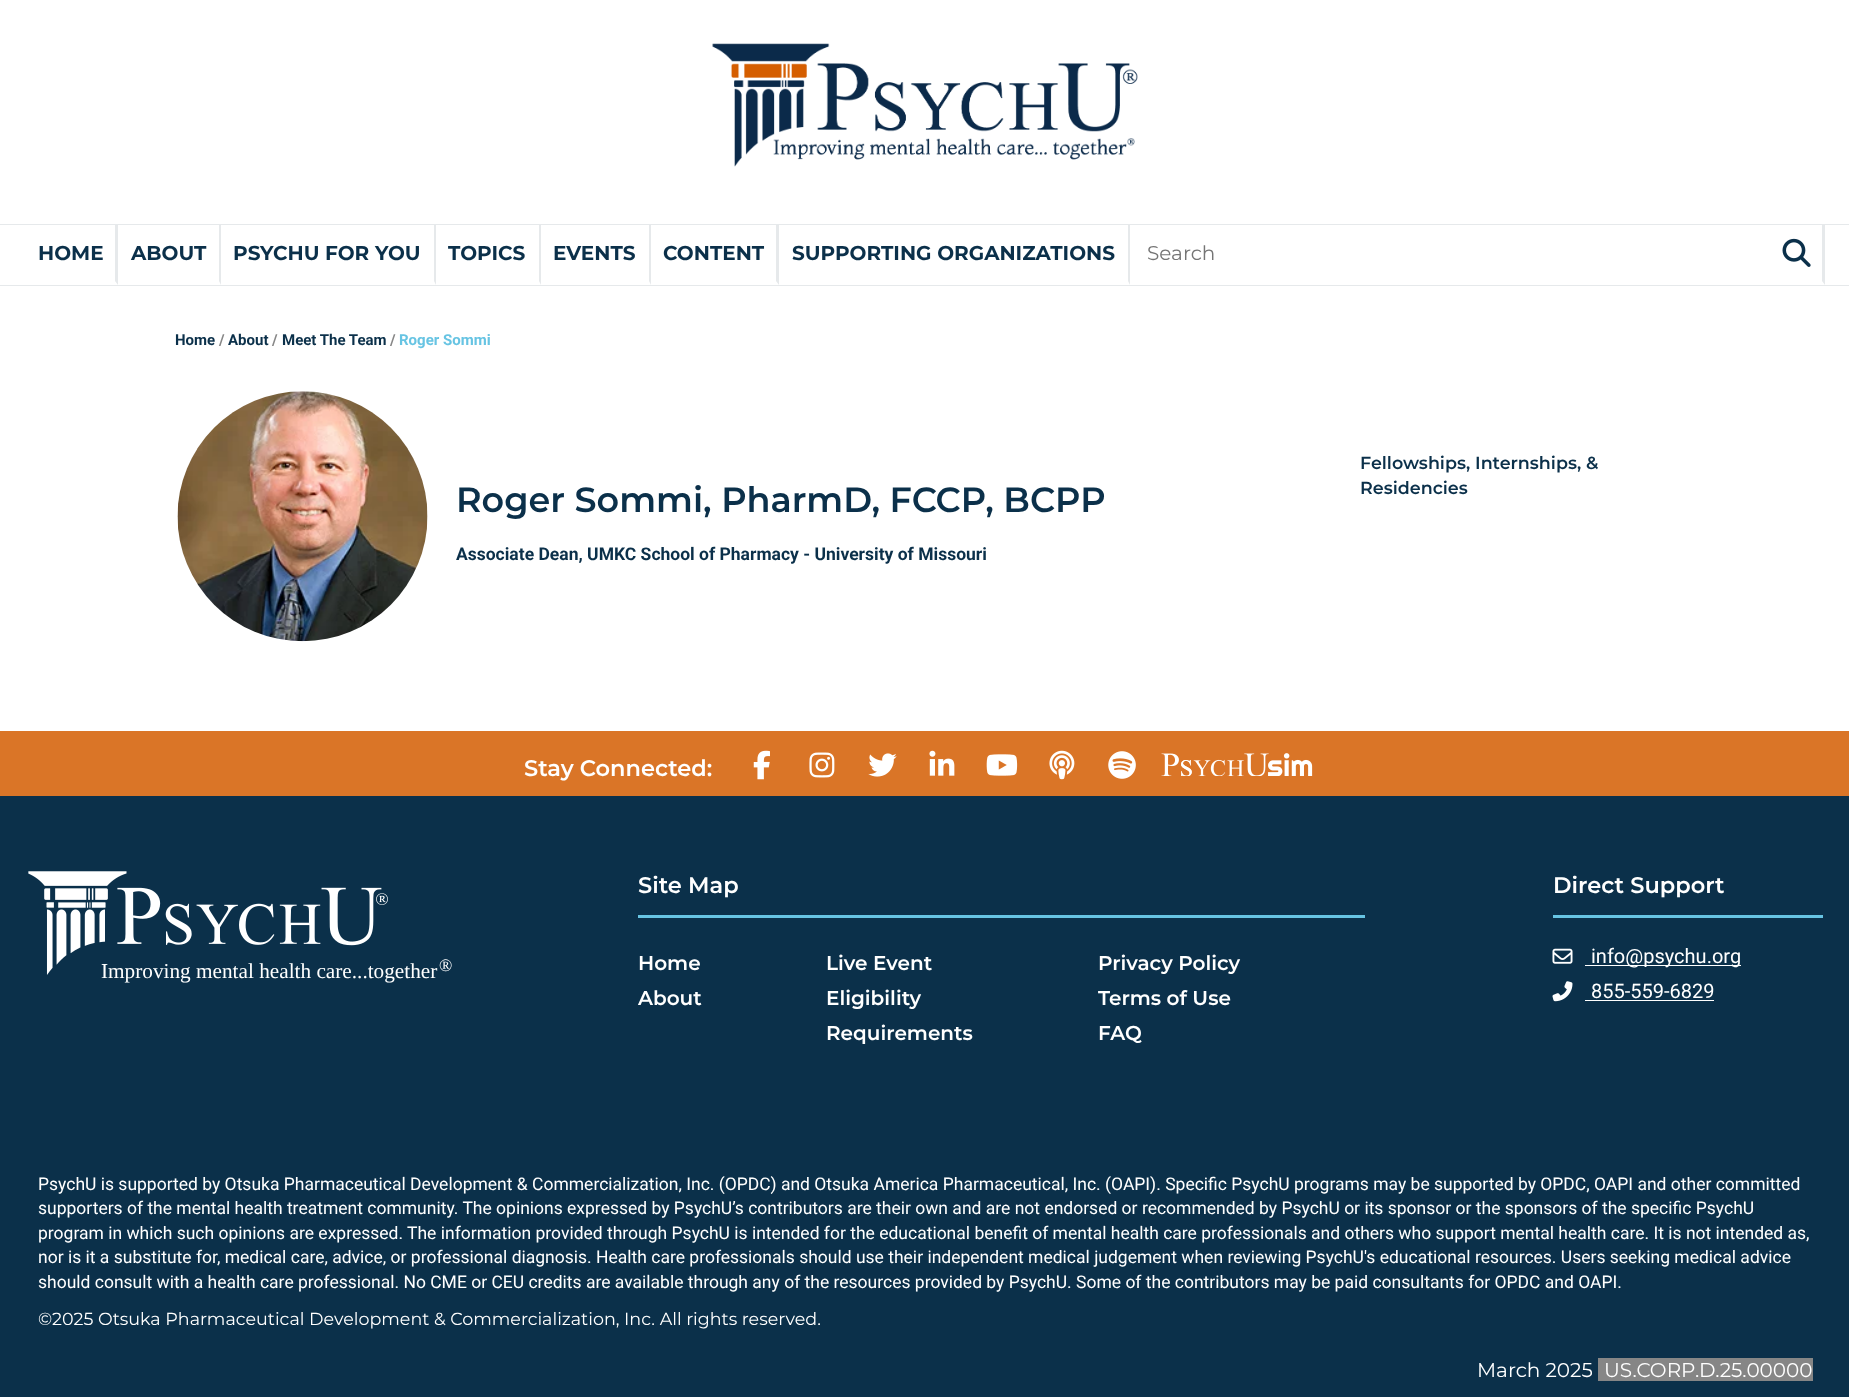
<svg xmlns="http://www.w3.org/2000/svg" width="1849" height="1397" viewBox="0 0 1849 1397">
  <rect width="100%" height="100%" fill="#ffffff"/>
  <image x="712" y="43" width="426" height="124" href="img1.png"/>
  <rect x="0" y="224" width="1849" height="1" fill="#e6e9eb"/>
  <rect x="0" y="285" width="1849" height="1" fill="#e6e9eb"/>
  <path d="M118 225V285L115 281V225Z" fill="#e6e9eb"/>
  <text x="38" y="260" font-family="Montserrat" font-size="20" font-weight="bold" fill="#0b304a">HOME</text>
  <path d="M221 225V285L219 281V225Z" fill="#e6e9eb"/>
  <text x="131" y="260" font-family="Montserrat" font-size="20" font-weight="bold" fill="#0b304a">ABOUT</text>
  <path d="M436 225V285L434 281V225Z" fill="#e6e9eb"/>
  <text x="233" y="260" font-family="Montserrat" font-size="20" font-weight="bold" fill="#0b304a">PSYCHU FOR YOU</text>
  <path d="M541 225V285L539 281V225Z" fill="#e6e9eb"/>
  <text x="448" y="260" font-family="Montserrat" font-size="20" font-weight="bold" fill="#0b304a">TOPICS</text>
  <path d="M651 225V285L649 281V225Z" fill="#e6e9eb"/>
  <text x="553" y="260" font-family="Montserrat" font-size="20" font-weight="bold" fill="#0b304a">EVENTS</text>
  <path d="M779 225V285L776 281V225Z" fill="#e6e9eb"/>
  <text x="663" y="260" font-family="Montserrat" font-size="20" font-weight="bold" fill="#0b304a">CONTENT</text>
  <path d="M1130 225V285L1128 281V225Z" fill="#e6e9eb"/>
  <text x="792" y="260" font-family="Montserrat" font-size="20" font-weight="bold" fill="#0b304a">SUPPORTING ORGANIZATIONS</text>
  <path d="M1825 225V285L1822 281V225Z" fill="#e6e9eb"/>
  <text x="1147" y="260" font-family="Montserrat" font-size="20" fill="#757575">Search</text>
  <image x="1782" y="238" width="29" height="29" href="img2.png"/>
  <text x="175" y="345" font-family="Roboto" font-size="15" font-weight="bold" fill="#0b304a">Home</text>
  <text x="219" y="345" font-family="Roboto" font-size="15" font-weight="bold" fill="#868686">/</text>
  <text x="228" y="345" font-family="Roboto" font-size="15" font-weight="bold" fill="#0b304a">About</text>
  <text x="272" y="345" font-family="Roboto" font-size="15" font-weight="bold" fill="#868686">/</text>
  <text x="282" y="345" font-family="Roboto" font-size="15" font-weight="bold" fill="#0b304a">Meet The Team</text>
  <text x="390" y="345" font-family="Roboto" font-size="15" font-weight="bold" fill="#868686">/</text>
  <text x="399" y="345" font-family="Roboto" font-size="15" font-weight="bold" fill="#67c4e3">Roger Sommi</text>
  <text x="1360" y="469" font-family="Montserrat" font-size="17.5" font-weight="600" fill="#0b304a">Fellowships, Internships, &amp;</text>
  <text x="1360" y="494" font-family="Montserrat" font-size="17.5" font-weight="600" fill="#0b304a">Residencies</text>
  <image x="177" y="391" width="251" height="251" href="img3.png"/>
  <text x="456" y="512" font-family="Montserrat" font-size="35" font-weight="600" fill="#0b304a">Roger Sommi, PharmD, FCCP, BCPP</text>
  <text x="456" y="560" font-family="Roboto" font-size="17.5" font-weight="bold" fill="#0b304a">Associate Dean, UMKC School of Pharmacy - University of Missouri</text>
  <rect x="0" y="731" width="1849" height="65" fill="#da7527"/>
  <text x="524" y="776" font-family="Montserrat" font-size="22.5" font-weight="600" fill="#ffffff">Stay Connected:</text>
  <image x="753" y="750" width="17" height="30" href="img4.png"/>
  <image x="809" y="752" width="26" height="26" href="img5.png"/>
  <image x="868" y="753" width="29" height="24" href="img6.png"/>
  <image x="929" y="750" width="26" height="26" href="img7.png"/>
  <image x="986" y="754" width="32" height="22" href="img8.png"/>
  <image x="1049" y="750" width="26" height="30" href="img9.png"/>
  <image x="1108" y="751" width="28" height="28" href="img10.png"/>
  <image x="1161" y="753" width="152" height="23" href="img11.png"/>
  <rect x="0" y="796" width="1849" height="601" fill="#0b304a"/>
  <image x="28" y="871" width="360" height="104" href="img12.png"/>
  <text x="101" y="978" font-family="Liberation Serif" font-size="21.25" fill="#ffffff">Improving mental health care...together</text>
  <text x="439" y="971" font-family="Liberation Serif" font-size="17.5" fill="#ffffff">®</text>
  <rect x="638" y="915" width="727" height="3" fill="#67c4e3"/>
  <text x="638" y="893" font-family="Montserrat" font-size="22.5" font-weight="600" fill="#ffffff">Site Map</text>
  <text x="638" y="970" font-family="Montserrat" font-size="20" font-weight="600" fill="#ffffff">Home</text>
  <text x="826" y="970" font-family="Montserrat" font-size="20" font-weight="600" fill="#ffffff">Live Event</text>
  <text x="1098" y="970" font-family="Montserrat" font-size="20" font-weight="600" fill="#ffffff">Privacy Policy</text>
  <text x="638" y="1005" font-family="Montserrat" font-size="20" font-weight="600" fill="#ffffff">About</text>
  <text x="826" y="1005" font-family="Montserrat" font-size="20" font-weight="600" fill="#ffffff">Eligibility</text>
  <text x="1098" y="1005" font-family="Montserrat" font-size="20" font-weight="600" fill="#ffffff">Terms of Use</text>
  <text x="826" y="1040" font-family="Montserrat" font-size="20" font-weight="600" fill="#ffffff">Requirements</text>
  <text x="1098" y="1040" font-family="Montserrat" font-size="20" font-weight="600" fill="#ffffff">FAQ</text>
  <rect x="1553" y="915" width="270" height="3" fill="#67c4e3"/>
  <text x="1553" y="893" font-family="Montserrat" font-size="22.5" font-weight="600" fill="#ffffff">Direct Support</text>
  <image x="1552" y="948" width="21" height="16" href="img13.png"/>
  <rect x="1585" y="965" width="156" height="1" fill="#ffffff"/>
  <text x="1591" y="963" font-family="Roboto" font-size="20" fill="#ffffff">info@psychu.org</text>
  <image x="1552" y="981" width="21" height="21" href="img14.png"/>
  <text x="1591" y="998" font-family="Roboto" font-size="20" fill="#ffffff">855-559-6829</text>
  <rect x="1585" y="1000" width="129" height="1" fill="#ffffff"/>
  <text x="38" y="1190" font-family="Roboto" font-size="17.5" fill="#ffffff">PsychU is supported by Otsuka Pharmaceutical Development &amp; Commercialization, Inc. (OPDC) and Otsuka America Pharmaceutical, Inc. (OAPI). Specific PsychU programs may be supported by OPDC, OAPI and other committed</text>
  <text x="38" y="1214" font-family="Roboto" font-size="17.5" fill="#ffffff">supporters of the mental health treatment community. The opinions expressed by PsychU’s contributors are their own and are not endorsed or recommended by PsychU or its sponsor or the sponsors of the specific PsychU</text>
  <text x="38" y="1239" font-family="Roboto" font-size="17.5" fill="#ffffff">program in which such opinions are expressed. The information provided through PsychU is intended for the educational benefit of mental health care professionals and others who support mental health care. It is not intended as,</text>
  <text x="38" y="1263" font-family="Roboto" font-size="17.5" fill="#ffffff">nor is it a substitute for, medical care, advice, or professional diagnosis. Health care professionals should use their independent medical judgement when reviewing PsychU's educational resources. Users seeking medical advice</text>
  <text x="38" y="1288" font-family="Roboto" font-size="17.5" fill="#ffffff">should consult with a health care professional. No CME or CEU credits are available through any of the resources provided by PsychU. Some of the contributors may be paid consultants for OPDC and OAPI.</text>
  <text x="38" y="1325" font-family="Montserrat" font-size="17.5" fill="#ffffff">©2025 Otsuka Pharmaceutical Development &amp; Commercialization, Inc. All rights reserved.</text>
  <text x="1477" y="1377" font-family="Montserrat" font-size="20" fill="#ffffff">March 2025</text>
  <rect x="1598" y="1358" width="215" height="23" fill="#868686"/>
  <text x="1604" y="1377" font-family="Montserrat" font-size="20" fill="#ffffff">US.CORP.D.25.00000</text>
</svg>
